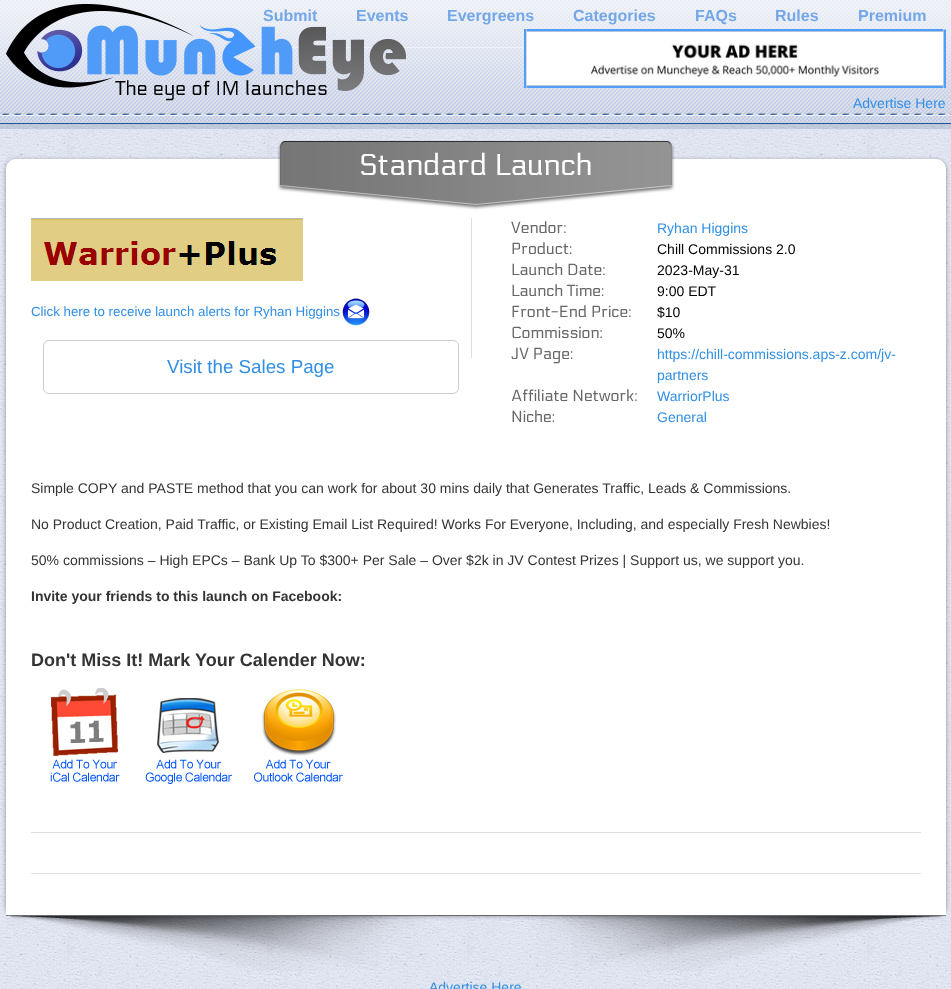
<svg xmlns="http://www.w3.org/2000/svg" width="951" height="989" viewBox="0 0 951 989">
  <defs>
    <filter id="blur1" x="-50%" y="-200%" width="200%" height="500%"><feGaussianBlur stdDeviation="2"/></filter>
  </defs>
  <rect width="100%" height="100%" fill="#ffffff"/>
  <image x="0" y="124" width="951" height="865" href="img1.png"/>
  <image x="0" y="0" width="951" height="124" href="img2.png"/>
  <rect x="0" y="124" width="951" height="5" fill="#08346a" fill-opacity="0.15"/>
  <rect x="244" y="47" width="280" height="1" fill="#eff1f7"/>
  <text x="263" y="21" font-family="Liberation Sans" font-size="16" font-weight="bold" fill="#74a7e7">Submit</text>
  <text x="356" y="21" font-family="Liberation Sans" font-size="16" font-weight="bold" fill="#74a7e7">Events</text>
  <image x="6" y="4" width="400" height="97" href="img3.png"/>
  <text x="447" y="21" font-family="Liberation Sans" font-size="16" font-weight="bold" fill="#74a7e7">Evergreens</text>
  <text x="573" y="21" font-family="Liberation Sans" font-size="16" font-weight="bold" fill="#74a7e7">Categories</text>
  <text x="695" y="21" font-family="Liberation Sans" font-size="16" font-weight="bold" fill="#74a7e7">FAQs</text>
  <text x="775" y="21" font-family="Liberation Sans" font-size="16" font-weight="bold" fill="#74a7e7">Rules</text>
  <text x="858" y="21" font-family="Liberation Sans" font-size="16" font-weight="bold" fill="#74a7e7">Premium</text>
  <image x="524" y="29" width="422" height="59" href="img4.png"/>
  <text x="853" y="108" font-family="Liberation Sans" font-size="14" fill="#318fe3">Advertise Here</text>
  <image x="11" y="916" width="930" height="55" href="img11.png"/>
  <rect x="6" y="915" width="940" height="1" fill="#898c94"/>
  <rect x="6" y="160" width="940" height="756" rx="10" fill="#000000" fill-opacity="0.4" filter="url(#blur1)"/>
  <path d="M16 159H936C941.5 159 946 163.5 946 169V915H6V169C6 163.5 10.5 159 16 159Z" fill="#ffffff"/>
  <image x="277" y="140" width="398" height="70" href="img5.png"/>
  <text x="359" y="175" font-family="Electrolize" font-size="30" fill="#ffffff">Standard Launch</text>
  <rect x="471" y="218" width="1" height="140" fill="#dedede"/>
  <image x="31" y="218" width="272" height="63" href="img6.png"/>
  <text x="31" y="316" font-family="Liberation Sans" font-size="13.3" fill="#318fe3">Click here to receive launch alerts for Ryhan Higgins</text>
  <image x="342" y="298" width="28" height="28" href="img7.png"/>
  <rect x="43.5" y="340.5" width="415" height="53" rx="5.5" fill="none" stroke="#cccccc"/>
  <text x="167" y="373" font-family="Liberation Sans" font-size="18.75" fill="#318fe3">Visit the Sales Page</text>
  <text x="511" y="233" font-family="Electrolize" font-size="16" fill="#676767">Vendor:</text>
  <text x="657" y="233" font-family="Liberation Sans" font-size="14" fill="#318fe3">Ryhan Higgins</text>
  <text x="511" y="254" font-family="Electrolize" font-size="16" fill="#676767">Product:</text>
  <text x="657" y="254" font-family="Liberation Sans" font-size="14" fill="#000000">Chill Commissions 2.0</text>
  <text x="511" y="275" font-family="Electrolize" font-size="16" fill="#676767">Launch Date:</text>
  <text x="657" y="275" font-family="Liberation Sans" font-size="14" fill="#000000">2023-May-31</text>
  <text x="511" y="296" font-family="Electrolize" font-size="16" fill="#676767">Launch Time:</text>
  <text x="657" y="296" font-family="Liberation Sans" font-size="14" fill="#000000">9:00 EDT</text>
  <text x="511" y="317" font-family="Electrolize" font-size="16" fill="#676767">Front-End Price:</text>
  <text x="657" y="317" font-family="Liberation Sans" font-size="14" fill="#000000">$10</text>
  <text x="511" y="338" font-family="Electrolize" font-size="16" fill="#676767">Commission:</text>
  <text x="657" y="338" font-family="Liberation Sans" font-size="14" fill="#000000">50%</text>
  <text x="511" y="359" font-family="Electrolize" font-size="16" fill="#676767">JV Page:</text>
  <text x="657" y="359" font-family="Liberation Sans" font-size="14" fill="#318fe3">https://chill-commissions.aps-z.com/jv-</text>
  <text x="657" y="380" font-family="Liberation Sans" font-size="14" fill="#318fe3">partners</text>
  <text x="511" y="401" font-family="Electrolize" font-size="16" fill="#676767">Affiliate Network:</text>
  <text x="657" y="401" font-family="Liberation Sans" font-size="14" fill="#318fe3">WarriorPlus</text>
  <text x="511" y="422" font-family="Electrolize" font-size="16" fill="#676767">Niche:</text>
  <text x="657" y="422" font-family="Liberation Sans" font-size="14" fill="#318fe3">General</text>
  <text x="31" y="493" font-family="Liberation Sans" font-size="14" fill="#343434">Simple COPY and PASTE method that you can work for about 30 mins daily that Generates Traffic, Leads &amp; Commissions.</text>
  <text x="31" y="529" font-family="Liberation Sans" font-size="14" fill="#343434">No Product Creation, Paid Traffic, or Existing Email List Required! Works For Everyone, Including, and especially Fresh Newbies!</text>
  <text x="31" y="565" font-family="Liberation Sans" font-size="14" fill="#343434">50% commissions – High EPCs – Bank Up To $300+ Per Sale – Over $2k in JV Contest Prizes | Support us, we support you.</text>
  <text x="31" y="601" font-family="Liberation Sans" font-size="14" font-weight="bold" fill="#343434">Invite your friends to this launch on Facebook:</text>
  <text x="31" y="666" font-family="Liberation Sans" font-size="18" font-weight="bold" fill="#343434">Don't Miss It! Mark Your Calender Now:</text>
  <image x="50" y="688" width="70" height="94" href="img8.png"/>
  <image x="145" y="698" width="87" height="90" href="img9.png"/>
  <image x="254" y="688" width="91" height="94" href="img10.png"/>
  <rect x="31" y="832" width="890" height="1" fill="#dedede"/>
  <rect x="31" y="873" width="890" height="1" fill="#dedede"/>
  <text x="429" y="992" font-family="Liberation Sans" font-size="14" fill="#318fe3">Advertise Here</text>
</svg>
